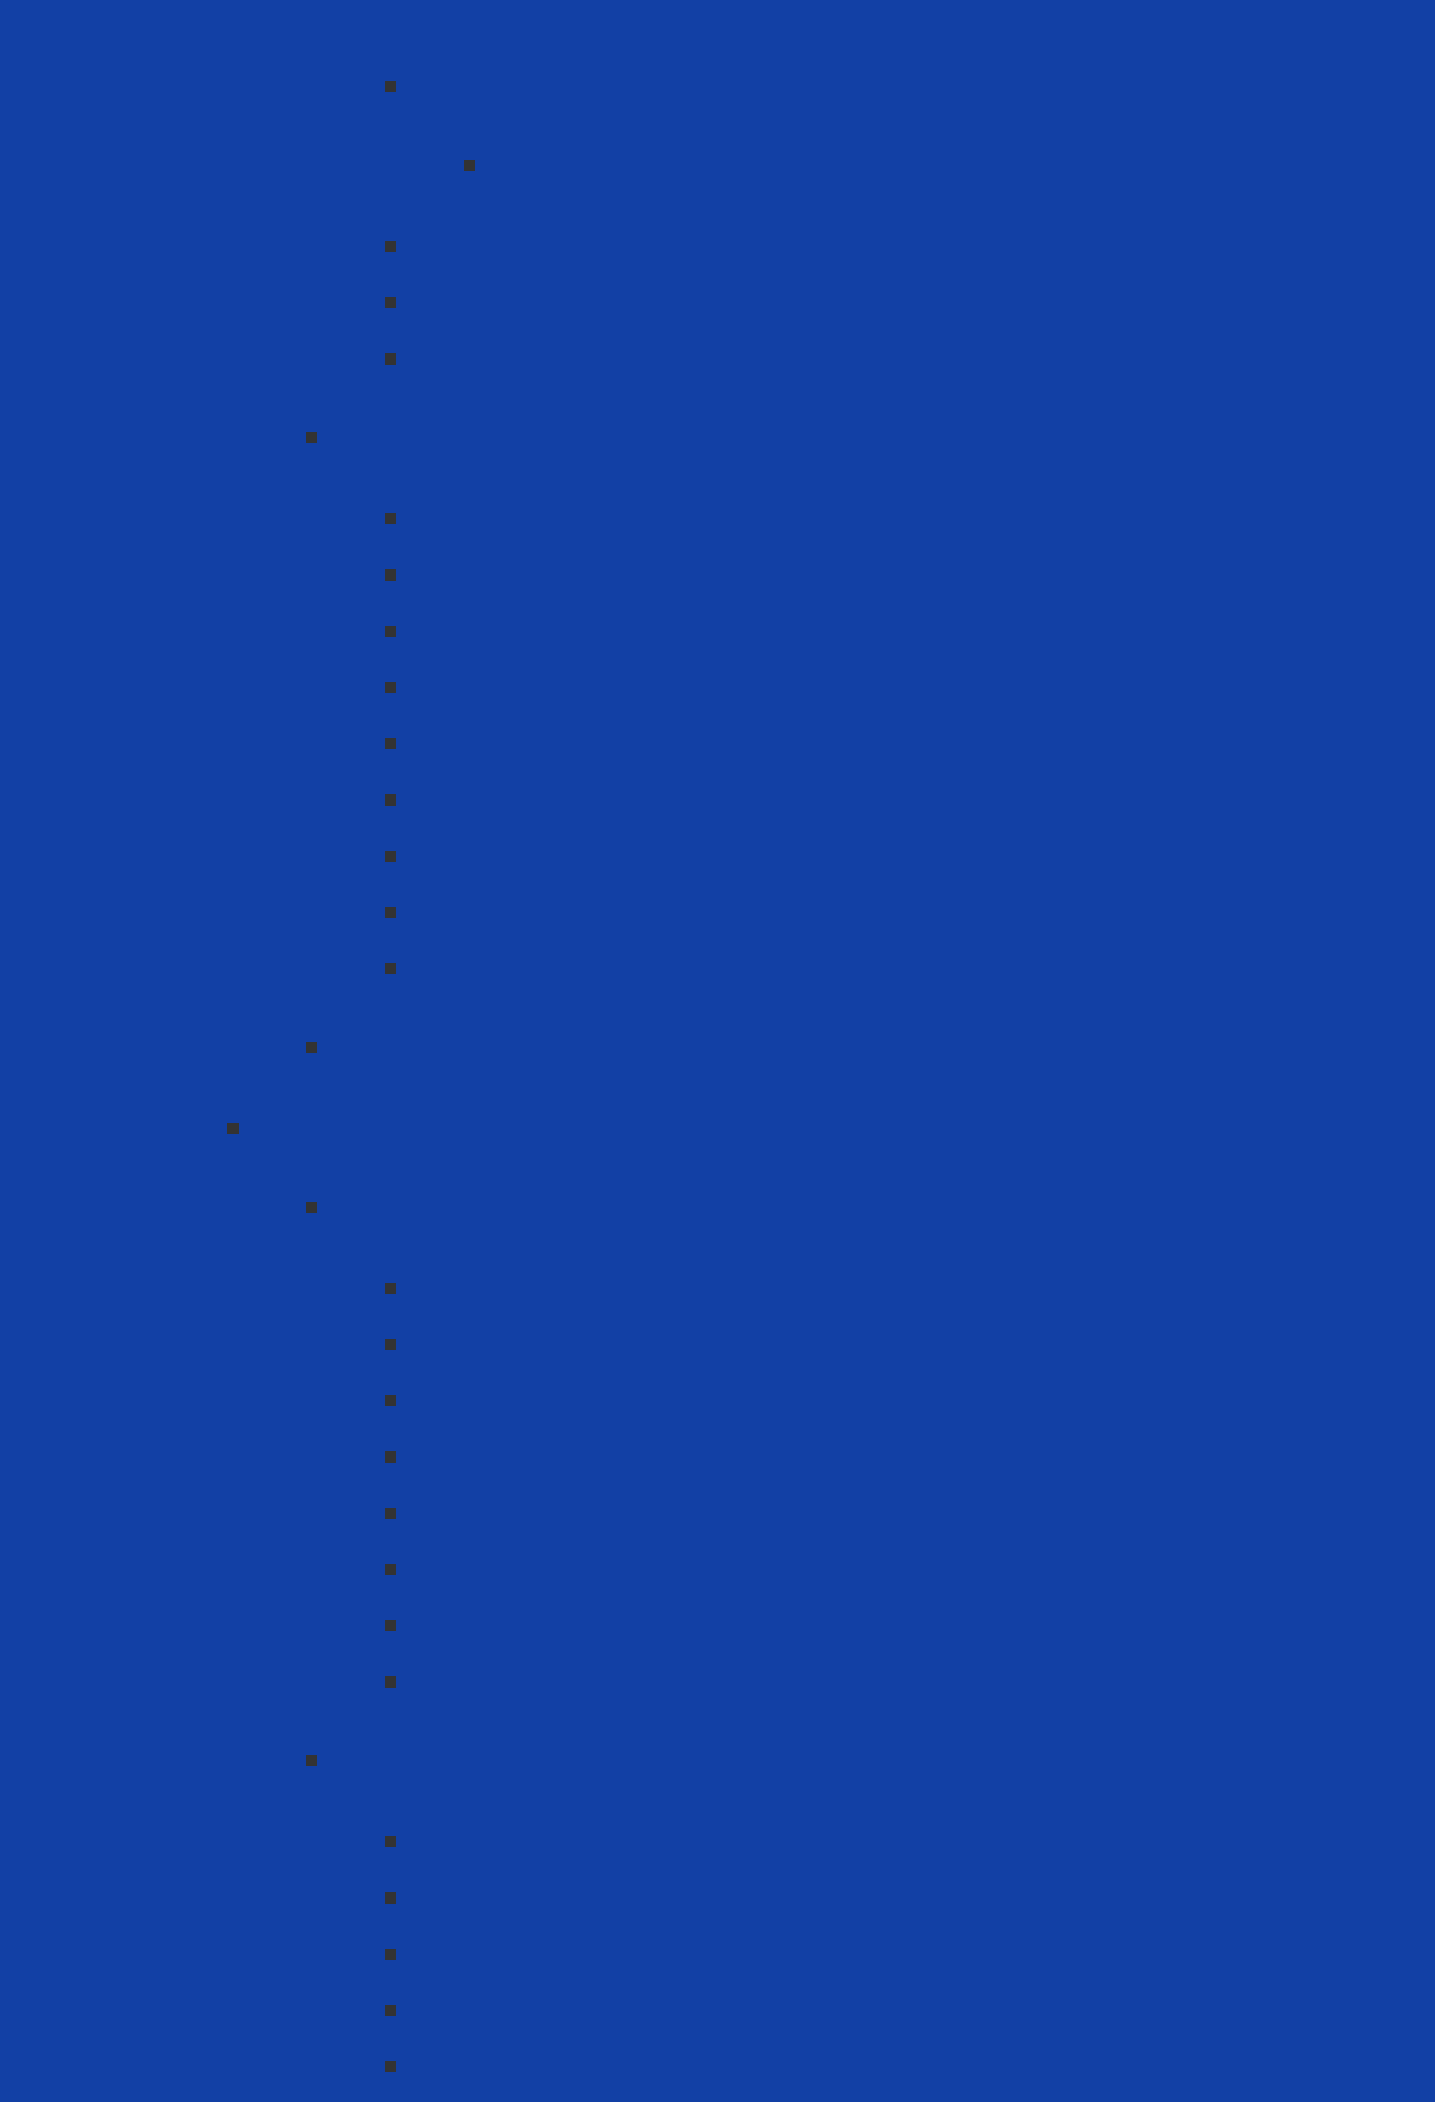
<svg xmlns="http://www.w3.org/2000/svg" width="1435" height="2102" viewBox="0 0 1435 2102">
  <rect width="100%" height="100%" fill="#1240a5"/>
  <rect x="385" y="81" width="11" height="11" fill="#333333"/>
  <rect x="464" y="160" width="11" height="11" fill="#333333"/>
  <rect x="385" y="241" width="11" height="11" fill="#333333"/>
  <rect x="385" y="297" width="11" height="11" fill="#333333"/>
  <rect x="385" y="353" width="11" height="12" fill="#333333"/>
  <rect x="306" y="432" width="11" height="11" fill="#333333"/>
  <rect x="385" y="513" width="11" height="11" fill="#333333"/>
  <rect x="385" y="569" width="11" height="12" fill="#333333"/>
  <rect x="385" y="626" width="11" height="11" fill="#333333"/>
  <rect x="385" y="682" width="11" height="11" fill="#333333"/>
  <rect x="385" y="738" width="11" height="11" fill="#333333"/>
  <rect x="385" y="794" width="11" height="12" fill="#333333"/>
  <rect x="385" y="851" width="11" height="11" fill="#333333"/>
  <rect x="385" y="907" width="11" height="11" fill="#333333"/>
  <rect x="385" y="963" width="11" height="11" fill="#333333"/>
  <rect x="306" y="1042" width="11" height="11" fill="#333333"/>
  <rect x="227" y="1123" width="12" height="11" fill="#333333"/>
  <rect x="306" y="1202" width="11" height="11" fill="#333333"/>
  <rect x="385" y="1283" width="11" height="11" fill="#333333"/>
  <rect x="385" y="1339" width="11" height="11" fill="#333333"/>
  <rect x="385" y="1395" width="11" height="11" fill="#333333"/>
  <rect x="385" y="1451" width="11" height="12" fill="#333333"/>
  <rect x="385" y="1508" width="11" height="11" fill="#333333"/>
  <rect x="385" y="1564" width="11" height="11" fill="#333333"/>
  <rect x="385" y="1620" width="11" height="11" fill="#333333"/>
  <rect x="385" y="1676" width="11" height="12" fill="#333333"/>
  <rect x="306" y="1755" width="11" height="11" fill="#333333"/>
  <rect x="385" y="1836" width="11" height="11" fill="#333333"/>
  <rect x="385" y="1892" width="11" height="12" fill="#333333"/>
  <rect x="385" y="1949" width="11" height="11" fill="#333333"/>
  <rect x="385" y="2005" width="11" height="11" fill="#333333"/>
  <rect x="385" y="2061" width="11" height="11" fill="#333333"/>
</svg>
